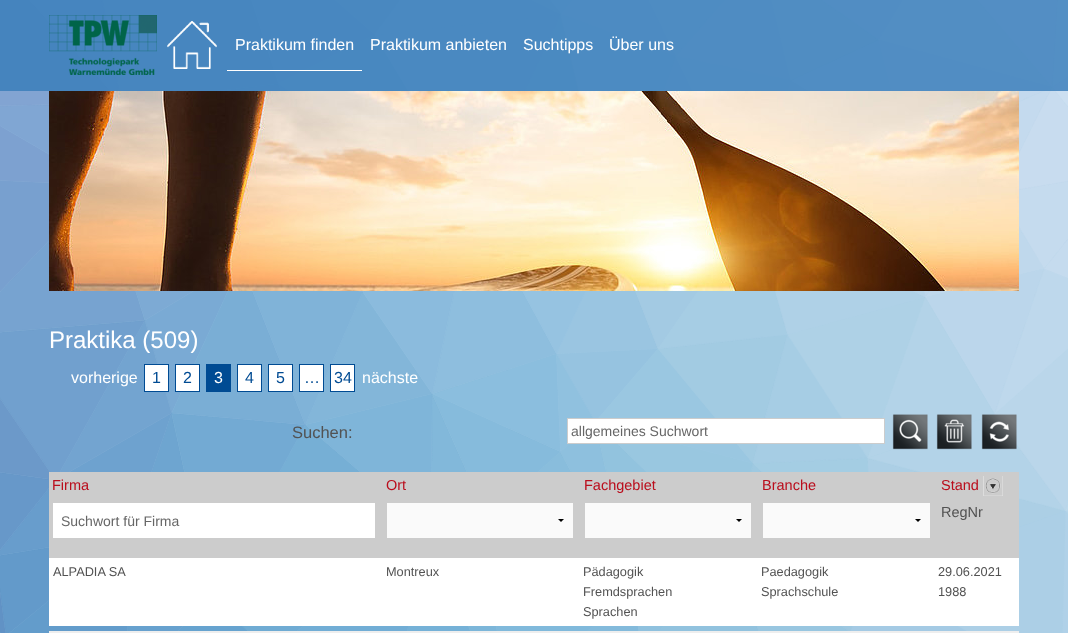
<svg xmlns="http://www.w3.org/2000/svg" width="1068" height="633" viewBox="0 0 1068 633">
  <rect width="100%" height="100%" fill="#ffffff"/>
  <image x="0" y="0" width="1068" height="633" href="img1.png"/>
  <rect x="0" y="0" width="1068" height="91" fill="#387dba" fill-opacity="0.82"/>
  <image x="49" y="15" width="108" height="60" href="img2.png"/>
  <image x="167" y="21" width="50" height="48" href="img3.png"/>
  <rect x="227" y="70" width="135" height="1" fill="#ffffff"/>
  <text x="235" y="50" font-family="Liberation Sans" font-size="16" fill="#ffffff">Praktikum finden</text>
  <text x="370" y="50" font-family="Liberation Sans" font-size="16" fill="#ffffff">Praktikum anbieten</text>
  <text x="523" y="50" font-family="Liberation Sans" font-size="16" fill="#ffffff">Suchtipps</text>
  <text x="609" y="50" font-family="Liberation Sans" font-size="16" fill="#ffffff">Über uns</text>
  <image x="49" y="91" width="970" height="200" href="img4.png"/>
  <text x="49" y="348" font-family="Liberation Sans" font-size="24" fill="#ffffff">Praktika (509)</text>
  <text x="71" y="383" font-family="Liberation Sans" font-size="16" fill="#ffffff">vorherige</text>
  <rect x="144.5" y="364.5" width="24" height="27" fill="#ffffff" stroke="#004b93"/>
  <text x="152" y="383" font-family="Liberation Sans" font-size="16" fill="#004b93">1</text>
  <rect x="175.5" y="364.5" width="24" height="27" fill="#ffffff" stroke="#004b93"/>
  <text x="183" y="383" font-family="Liberation Sans" font-size="16" fill="#004b93">2</text>
  <rect x="206" y="364" width="25" height="28" fill="#004b93"/>
  <text x="214" y="383" font-family="Liberation Sans" font-size="16" fill="#ffffff">3</text>
  <rect x="237.5" y="364.5" width="24" height="27" fill="#ffffff" stroke="#004b93"/>
  <text x="245" y="383" font-family="Liberation Sans" font-size="16" fill="#004b93">4</text>
  <rect x="268.5" y="364.5" width="24" height="27" fill="#ffffff" stroke="#004b93"/>
  <text x="276" y="383" font-family="Liberation Sans" font-size="16" fill="#004b93">5</text>
  <rect x="299.5" y="364.5" width="24" height="27" fill="#ffffff" stroke="#004b93"/>
  <text x="304" y="383" font-family="Liberation Sans" font-size="16" fill="#004b93">…</text>
  <rect x="330.5" y="364.5" width="24" height="27" fill="#ffffff" stroke="#004b93"/>
  <text x="334" y="383" font-family="Liberation Sans" font-size="16" fill="#004b93">34</text>
  <text x="362" y="383" font-family="Liberation Sans" font-size="16" fill="#ffffff">nächste</text>
  <text x="292" y="438" font-family="Liberation Sans" font-size="16.5" fill="#525252">Suchen:</text>
  <rect x="567.5" y="418.5" width="317" height="25" fill="#ffffff" stroke="#cccccc"/>
  <text x="571" y="436" font-family="Liberation Sans" font-size="14" fill="#666666">allgemeines Suchwort</text>
  <image x="892" y="414" width="36" height="36" href="img5.png"/>
  <image x="936" y="414" width="36" height="36" href="img6.png"/>
  <image x="981" y="414" width="36" height="36" href="img7.png"/>
  <rect x="49" y="472" width="970" height="86" fill="#cccccc"/>
  <text x="52" y="490" font-family="Liberation Sans" font-size="14.5" fill="#ba0d1c">Firma</text>
  <text x="386" y="490" font-family="Liberation Sans" font-size="14.5" fill="#ba0d1c">Ort</text>
  <text x="584" y="490" font-family="Liberation Sans" font-size="14.5" fill="#ba0d1c">Fachgebiet</text>
  <text x="762" y="490" font-family="Liberation Sans" font-size="14.5" fill="#ba0d1c">Branche</text>
  <text x="941" y="490" font-family="Liberation Sans" font-size="14.5" fill="#ba0d1c">Stand</text>
  <image x="983" y="476" width="20" height="20" href="img8.png"/>
  <rect x="53" y="503" width="322" height="35" fill="#ffffff"/>
  <text x="61" y="526" font-family="Liberation Sans" font-size="14" fill="#666666">Suchwort für Firma</text>
  <rect x="387" y="503" width="186" height="35" fill="#fafafa"/>
  <path d="M564 519L561 522L558 519Z" fill="#000000"/>
  <rect x="585" y="503" width="166" height="35" fill="#fafafa"/>
  <path d="M742 519L739 522L736 519Z" fill="#000000"/>
  <rect x="763" y="503" width="167" height="35" fill="#fafafa"/>
  <path d="M921 519L918 522L915 519Z" fill="#000000"/>
  <text x="941" y="517" font-family="Liberation Sans" font-size="14.5" fill="#525252">RegNr</text>
  <rect x="49" y="558" width="970" height="68" fill="#ffffff"/>
  <text x="53" y="576" font-family="Liberation Sans" font-size="12.75" fill="#525252">ALPADIA SA</text>
  <text x="386" y="576" font-family="Liberation Sans" font-size="12.75" fill="#525252">Montreux</text>
  <text x="583" y="576" font-family="Liberation Sans" font-size="12.75" fill="#525252">Pädagogik</text>
  <text x="583" y="596" font-family="Liberation Sans" font-size="12.75" fill="#525252">Fremdsprachen</text>
  <text x="583" y="616" font-family="Liberation Sans" font-size="12.75" fill="#525252">Sprachen</text>
  <text x="761" y="576" font-family="Liberation Sans" font-size="12.75" fill="#525252">Paedagogik</text>
  <text x="761" y="596" font-family="Liberation Sans" font-size="12.75" fill="#525252">Sprachschule</text>
  <text x="938" y="576" font-family="Liberation Sans" font-size="12.75" fill="#525252">29.06.2021</text>
  <text x="938" y="596" font-family="Liberation Sans" font-size="12.75" fill="#525252">1988</text>
  <rect x="49" y="631" width="970" height="2" fill="#eeeeee"/>
</svg>
